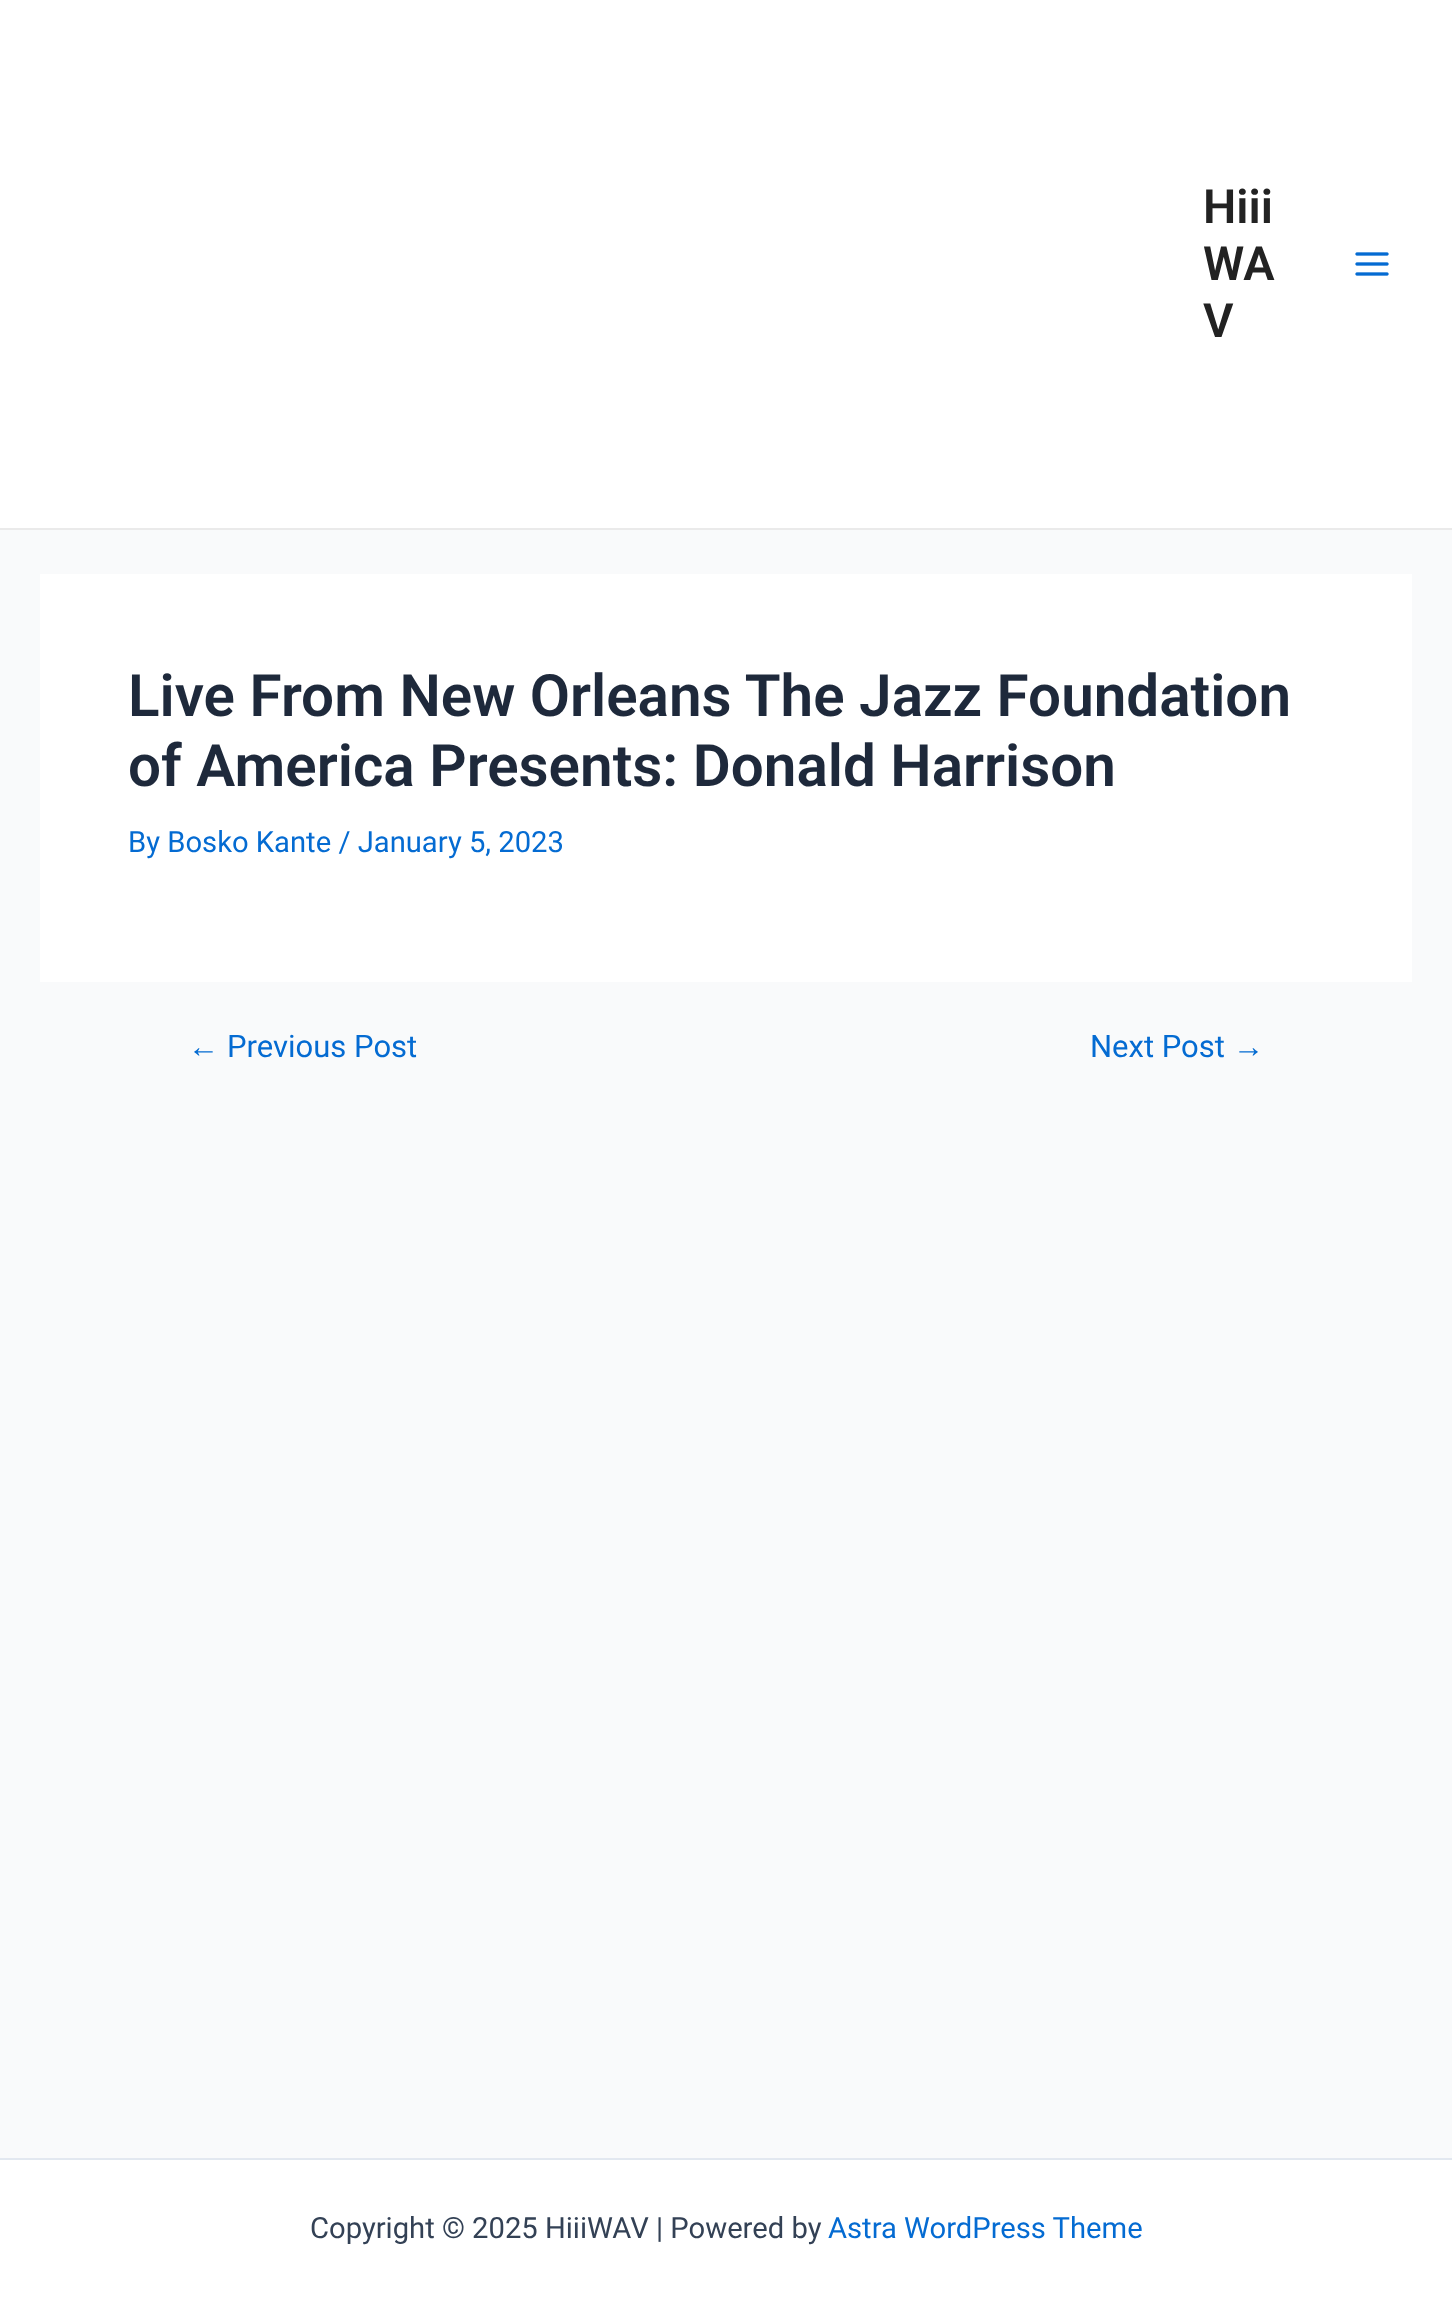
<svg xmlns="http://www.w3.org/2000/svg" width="1452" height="2317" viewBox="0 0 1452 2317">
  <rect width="100%" height="100%" fill="#f9fafb"/>
  <rect x="0" y="0" width="1452" height="528" fill="#ffffff"/>
  <rect x="0" y="528" width="1452" height="2" fill="#eaeaea"/>
  <text x="1203" y="223" font-family="Roboto" font-size="47" font-weight="600" fill="#222222">Hiii</text>
  <text x="1203" y="280" font-family="Roboto" font-size="47" font-weight="600" fill="#222222">WA</text>
  <text x="1203" y="337" font-family="Roboto" font-size="47" font-weight="600" fill="#222222">V</text>
  <image x="1355" y="252" width="34" height="24" href="img1.png"/>
  <rect x="40" y="574" width="1372" height="408" fill="#ffffff"/>
  <text x="128" y="716" font-family="Roboto" font-size="58.4" font-weight="600" fill="#1e293b">Live From New Orleans The Jazz Foundation</text>
  <text x="128" y="786" font-family="Roboto" font-size="58.4" font-weight="600" fill="#1e293b">of America Presents: Donald Harrison</text>
  <text x="128" y="852" font-family="Roboto" font-size="29.2" fill="#046bd2">By Bosko Kante / January 5, 2023</text>
  <text x="188" y="1057" font-family="Liberation Sans" font-size="31" fill="#046bd2">←</text>
  <text x="227" y="1057" font-family="Roboto" font-size="31" fill="#046bd2">Previous Post</text>
  <text x="1090" y="1057" font-family="Roboto" font-size="31" fill="#046bd2">Next Post</text>
  <text x="1233" y="1057" font-family="Liberation Sans" font-size="31" fill="#046bd2">→</text>
  <rect x="0" y="2160" width="1452" height="157" fill="#ffffff"/>
  <rect x="0" y="2158" width="1452" height="2" fill="#e2e8f0"/>
  <text x="310" y="2238" font-family="Roboto" font-size="29.2" fill="#334155">Copyright © 2025 HiiiWAV | Powered by</text>
  <text x="828" y="2238" font-family="Roboto" font-size="29.2" fill="#046bd2">Astra WordPress Theme</text>
</svg>
